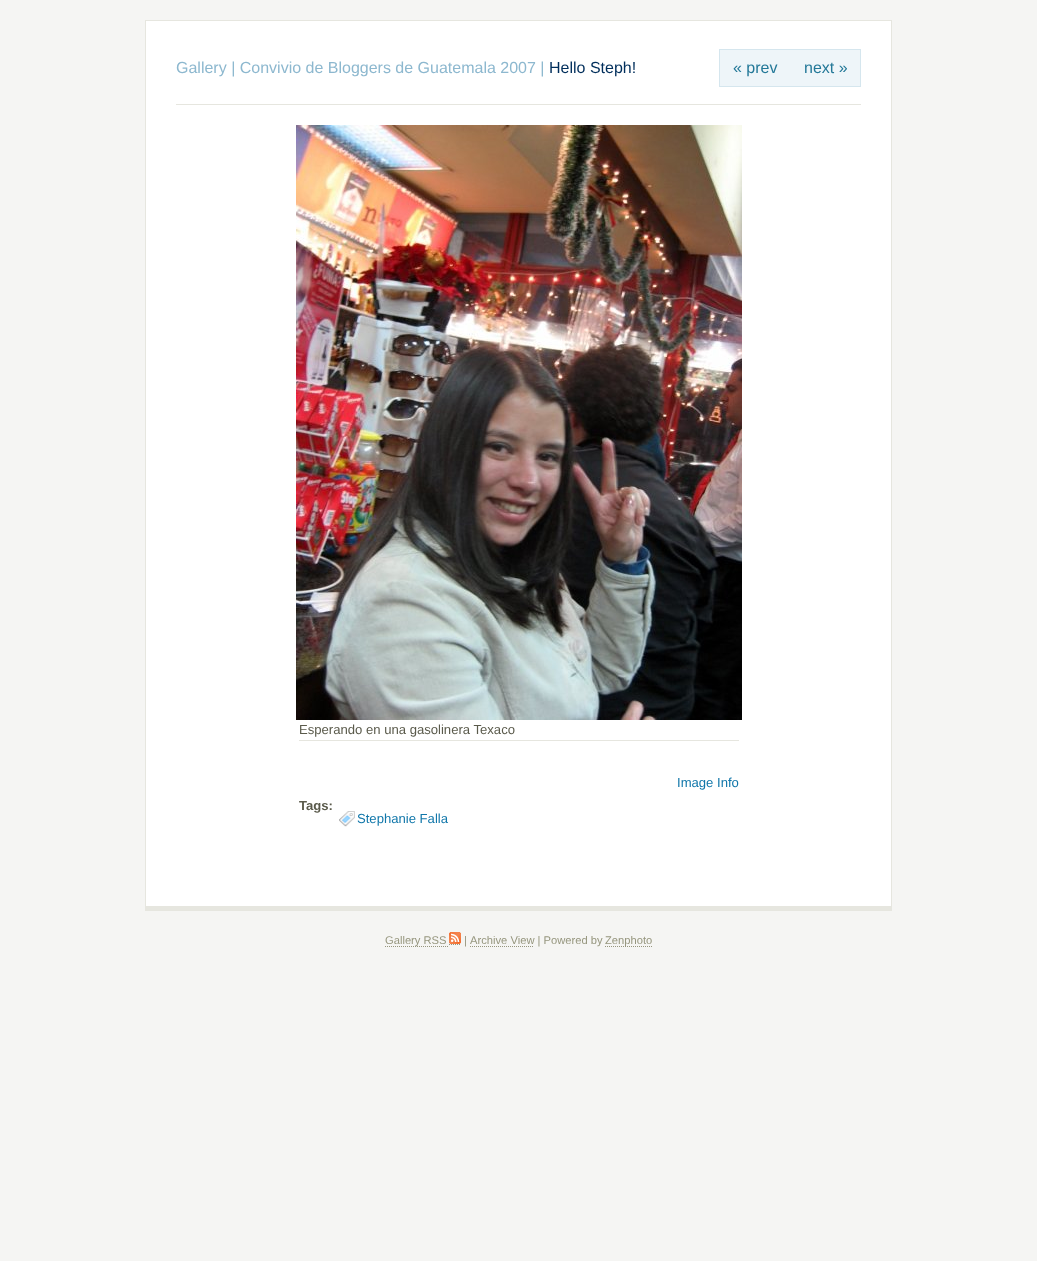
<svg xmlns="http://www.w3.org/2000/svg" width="1037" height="1261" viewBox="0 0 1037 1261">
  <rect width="100%" height="100%" fill="#f5f5f3"/>
  <rect x="146" y="21" width="745" height="885" fill="#ffffff"/>
  <rect x="145" y="20" width="747" height="1" fill="#e6e6df"/>
  <rect x="891" y="20" width="1" height="891" fill="#e6e6df"/>
  <rect x="145" y="906" width="747" height="5" fill="#e6e6df"/>
  <rect x="145" y="20" width="1" height="891" fill="#e6e6df"/>
  <rect x="176" y="104" width="685" height="1" fill="#e6e6df"/>
  <text x="176" y="73" font-family="Liberation Sans" font-size="16" fill="#8db8cf">Gallery | Convivio de Bloggers de Guatemala 2007 |</text>
  <text x="549" y="73" font-family="Liberation Sans" font-size="16" fill="#002e5b">Hello Steph!</text>
  <rect x="719.5" y="49.5" width="141" height="37" fill="#eef5f9" stroke="#d5e6ee"/>
  <text x="733" y="73" font-family="Liberation Sans" font-size="16" fill="#237898">« prev</text>
  <text x="804" y="73" font-family="Liberation Sans" font-size="16" fill="#237898">next »</text>
  <image x="296" y="125" width="446" height="595" href="img1.png"/>
  <text x="299" y="734" font-family="Liberation Sans" font-size="13.1" fill="#5a5a4b">Esperando en una gasolinera Texaco</text>
  <rect x="299" y="740" width="440" height="1" fill="#e6e6df"/>
  <text x="677" y="787" font-family="Liberation Sans" font-size="13.1" fill="#1177aa">Image Info</text>
  <text x="299" y="810" font-family="Liberation Sans" font-size="13.1" font-weight="bold" fill="#5a5a4b">Tags:</text>
  <image x="339" y="811" width="16" height="16" href="img2.png"/>
  <text x="357" y="823" font-family="Liberation Sans" font-size="13.1" fill="#1177aa">Stephanie Falla</text>
  <path d="M385 946.5H449" fill="none" stroke="#96967e" stroke-dasharray="1 1"/>
  <text x="385" y="944" font-family="Liberation Sans" font-size="11.2" fill="#96967e">Gallery RSS</text>
  <path d="M449 944.5H461" fill="none" stroke="#96967e" stroke-dasharray="1 1"/>
  <image x="449" y="932" width="12" height="12" href="img3.png"/>
  <text x="464" y="944" font-family="Liberation Sans" font-size="11.2" fill="#96967e">|</text>
  <path d="M470 946.5H534" fill="none" stroke="#96967e" stroke-dasharray="1 1"/>
  <text x="470" y="944" font-family="Liberation Sans" font-size="11.2" fill="#96967e">Archive View | Powered by</text>
  <path d="M605 946.5H652" fill="none" stroke="#96967e" stroke-dasharray="1 1"/>
  <text x="605" y="944" font-family="Liberation Sans" font-size="11.2" fill="#96967e">Zenphoto</text>
</svg>
